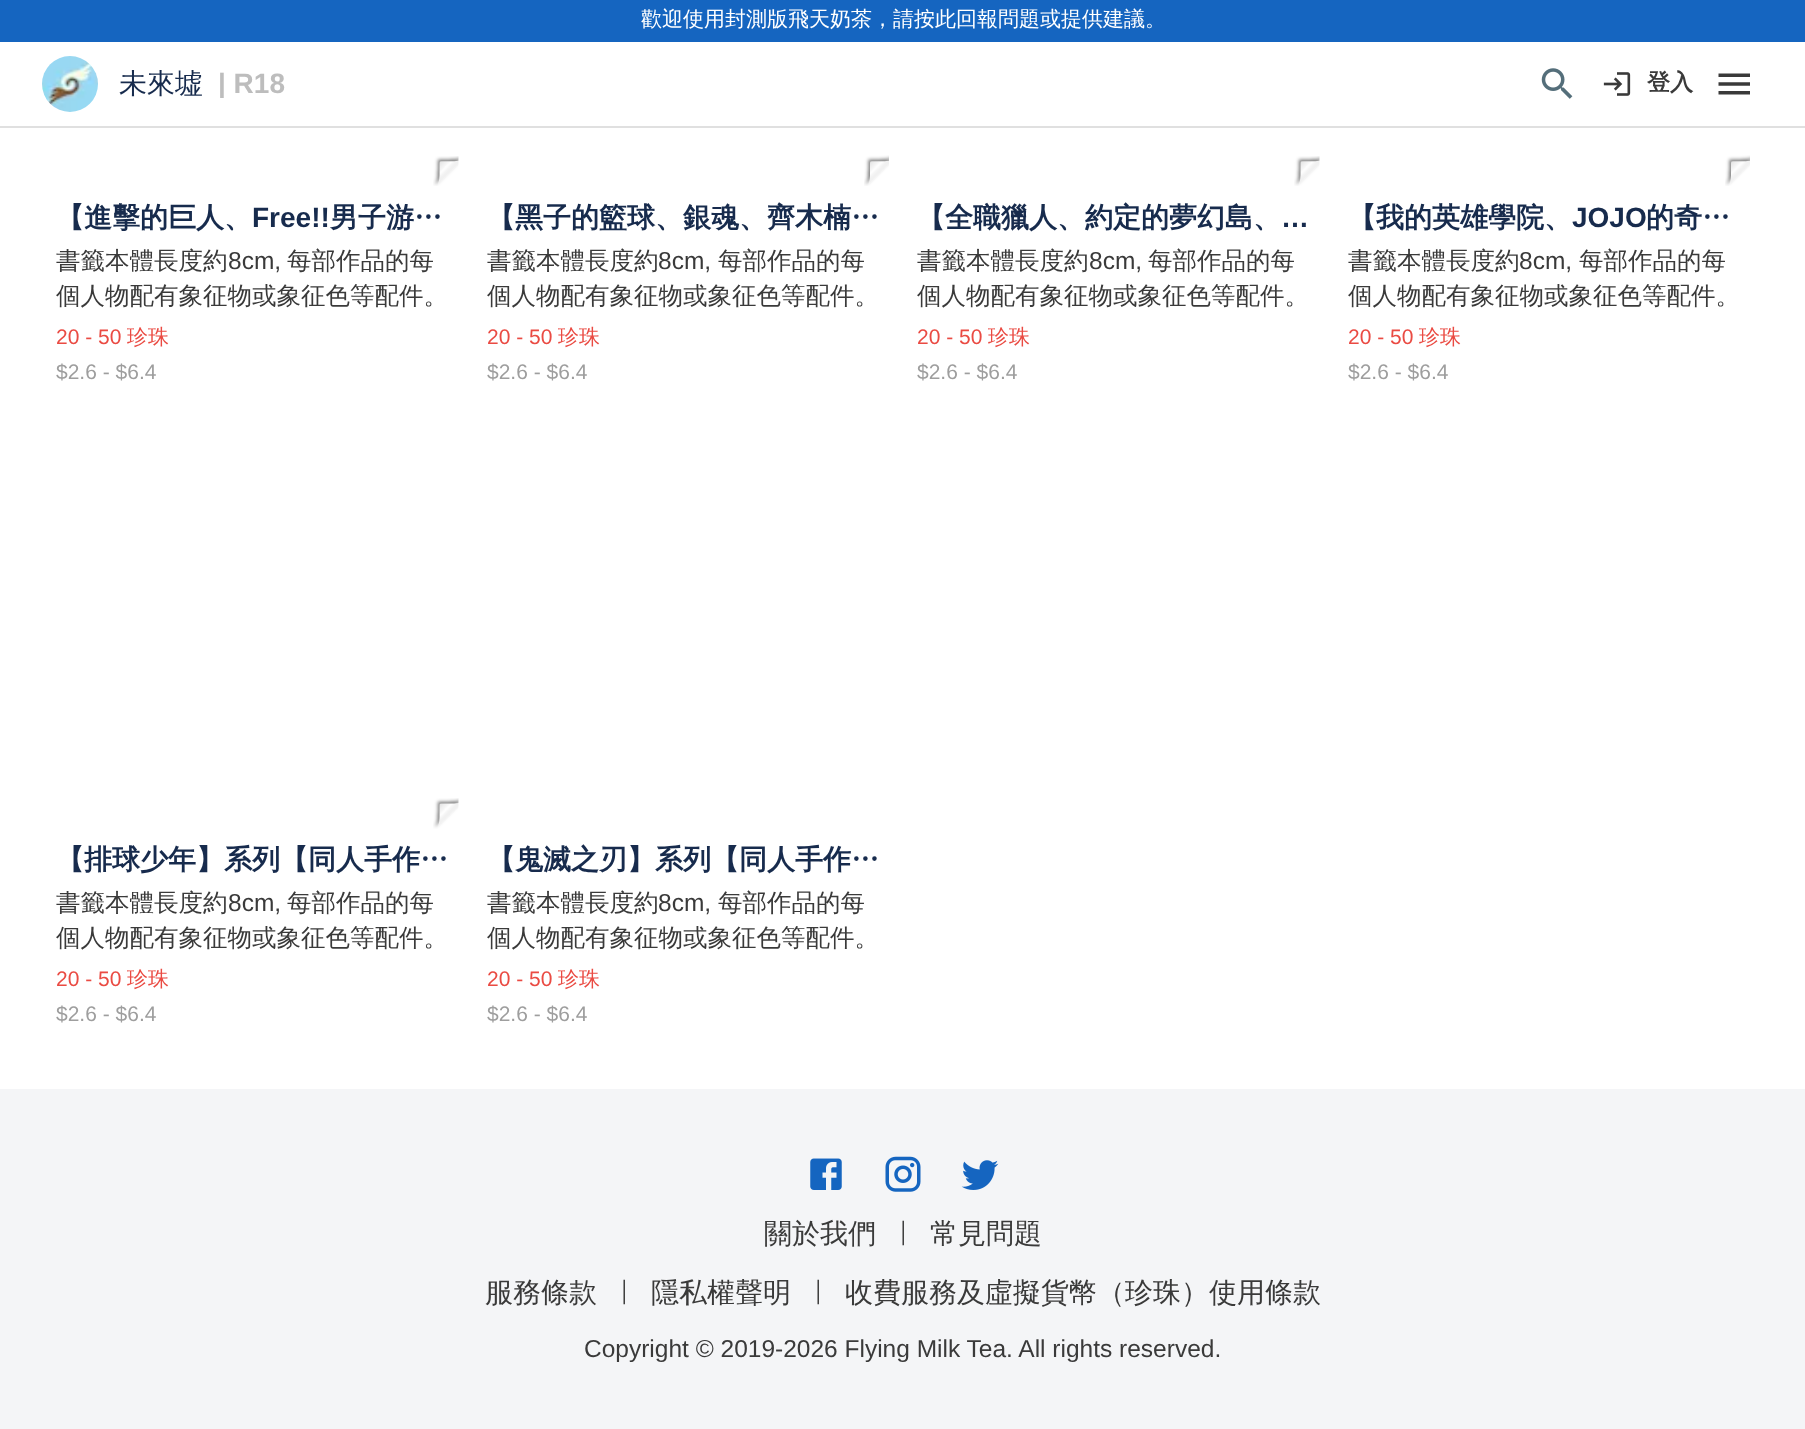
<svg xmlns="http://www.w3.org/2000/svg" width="1805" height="1429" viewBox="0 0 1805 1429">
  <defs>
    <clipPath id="clip1"><rect x="210" y="70" width="75" height="28"/></clipPath>
  </defs>
  <rect width="100%" height="100%" fill="#f4f5f7"/>
  <rect x="0" y="0" width="1805" height="42" fill="#1565c0"/>
  <text x="641" y="26" font-family="WenQuanYi Zen Hei" font-size="21" font-weight="500" fill="#ffffff">歡迎使用封測版飛天奶茶，請按此回報問題或提供建議。</text>
  <rect x="0" y="42" width="1805" height="1047" fill="#ffffff"/>
  <image x="42" y="56" width="56" height="56" href="img1.png"/>
  <text x="119" y="93" font-family="WenQuanYi Zen Hei" font-size="28" font-weight="500" fill="#172b4d">未來墟</text>
  <g clip-path="url(#clip1)">
    <text x="218" y="93" font-family="Liberation Sans" font-size="28" font-weight="bold" fill="#bdbdbd">| R18</text>
  </g>
  <image x="1541" y="68" width="32" height="31" href="img2.png"/>
  <image x="1603" y="72" width="28" height="24" href="img3.png"/>
  <text x="1647" y="90" font-family="WenQuanYi Zen Hei" font-size="23" font-weight="bold" fill="#3a3a3a">登入</text>
  <image x="1718" y="73" width="32" height="22" href="img4.png"/>
  <rect x="0" y="126" width="1805" height="2" fill="#e0e0e0"/>
  <image x="433" y="156" width="26" height="30" href="img5.png"/>
  <text x="56" y="227" font-family="WenQuanYi Zen Hei" font-size="28" font-weight="bold" fill="#172b4d">【進擊的巨人、</text>
  <text x="252" y="227" font-family="Liberation Sans" font-size="28" font-weight="bold" fill="#172b4d">Free!!</text>
  <text x="330" y="227" font-family="WenQuanYi Zen Hei" font-size="28" font-weight="bold" fill="#172b4d">男子游…</text>
  <text x="56" y="269" font-family="WenQuanYi Zen Hei" font-size="24.5" font-weight="500" fill="#3a3a3a">書籤本體長度約</text>
  <text x="228" y="269" font-family="Liberation Sans" font-size="24.5" fill="#3a3a3a">8cm,</text>
  <text x="287" y="269" font-family="WenQuanYi Zen Hei" font-size="24.5" font-weight="500" fill="#3a3a3a">每部作品的每</text>
  <text x="56" y="304" font-family="WenQuanYi Zen Hei" font-size="24.5" font-weight="500" fill="#3a3a3a">個人物配有象征物或象征色等配件。</text>
  <text x="56" y="344" font-family="Liberation Sans" font-size="21" fill="#ea4b43">20 - 50</text>
  <text x="127" y="344" font-family="WenQuanYi Zen Hei" font-size="21" font-weight="500" fill="#ea4b43">珍珠</text>
  <text x="56" y="379" font-family="Liberation Sans" font-size="21" fill="#9e9e9e">$2.6 - $6.4</text>
  <image x="864" y="155" width="25" height="31" href="img6.png"/>
  <text x="487" y="227" font-family="WenQuanYi Zen Hei" font-size="28" font-weight="bold" fill="#172b4d">【黑子的籃球、銀魂、齊木楠…</text>
  <text x="487" y="269" font-family="WenQuanYi Zen Hei" font-size="24.5" font-weight="500" fill="#3a3a3a">書籤本體長度約</text>
  <text x="658" y="269" font-family="Liberation Sans" font-size="24.5" fill="#3a3a3a">8cm,</text>
  <text x="718" y="269" font-family="WenQuanYi Zen Hei" font-size="24.5" font-weight="500" fill="#3a3a3a">每部作品的每</text>
  <text x="487" y="304" font-family="WenQuanYi Zen Hei" font-size="24.5" font-weight="500" fill="#3a3a3a">個人物配有象征物或象征色等配件。</text>
  <text x="487" y="344" font-family="Liberation Sans" font-size="21" fill="#ea4b43">20 - 50</text>
  <text x="558" y="344" font-family="WenQuanYi Zen Hei" font-size="21" font-weight="500" fill="#ea4b43">珍珠</text>
  <text x="487" y="379" font-family="Liberation Sans" font-size="21" fill="#9e9e9e">$2.6 - $6.4</text>
  <image x="1294" y="156" width="26" height="30" href="img7.png"/>
  <text x="917" y="227" font-family="WenQuanYi Zen Hei" font-size="28" font-weight="bold" fill="#172b4d">【全職獵人、約定的夢幻島、</text>
  <text x="1281" y="227" font-family="Liberation Sans" font-size="28" font-weight="bold" fill="#172b4d">…</text>
  <text x="917" y="269" font-family="WenQuanYi Zen Hei" font-size="24.5" font-weight="500" fill="#3a3a3a">書籤本體長度約</text>
  <text x="1089" y="269" font-family="Liberation Sans" font-size="24.5" fill="#3a3a3a">8cm,</text>
  <text x="1148" y="269" font-family="WenQuanYi Zen Hei" font-size="24.5" font-weight="500" fill="#3a3a3a">每部作品的每</text>
  <text x="917" y="304" font-family="WenQuanYi Zen Hei" font-size="24.5" font-weight="500" fill="#3a3a3a">個人物配有象征物或象征色等配件。</text>
  <text x="917" y="344" font-family="Liberation Sans" font-size="21" fill="#ea4b43">20 - 50</text>
  <text x="988" y="344" font-family="WenQuanYi Zen Hei" font-size="21" font-weight="500" fill="#ea4b43">珍珠</text>
  <text x="917" y="379" font-family="Liberation Sans" font-size="21" fill="#9e9e9e">$2.6 - $6.4</text>
  <image x="1725" y="155" width="25" height="31" href="img8.png"/>
  <text x="1348" y="227" font-family="WenQuanYi Zen Hei" font-size="28" font-weight="bold" fill="#172b4d">【我的英雄學院、</text>
  <text x="1572" y="227" font-family="Liberation Sans" font-size="28" font-weight="bold" fill="#172b4d">JOJO</text>
  <text x="1646" y="227" font-family="WenQuanYi Zen Hei" font-size="28" font-weight="bold" fill="#172b4d">的奇…</text>
  <text x="1348" y="269" font-family="WenQuanYi Zen Hei" font-size="24.5" font-weight="500" fill="#3a3a3a">書籤本體長度約</text>
  <text x="1519" y="269" font-family="Liberation Sans" font-size="24.5" fill="#3a3a3a">8cm,</text>
  <text x="1579" y="269" font-family="WenQuanYi Zen Hei" font-size="24.5" font-weight="500" fill="#3a3a3a">每部作品的每</text>
  <text x="1348" y="304" font-family="WenQuanYi Zen Hei" font-size="24.5" font-weight="500" fill="#3a3a3a">個人物配有象征物或象征色等配件。</text>
  <text x="1348" y="344" font-family="Liberation Sans" font-size="21" fill="#ea4b43">20 - 50</text>
  <text x="1419" y="344" font-family="WenQuanYi Zen Hei" font-size="21" font-weight="500" fill="#ea4b43">珍珠</text>
  <text x="1348" y="379" font-family="Liberation Sans" font-size="21" fill="#9e9e9e">$2.6 - $6.4</text>
  <image x="433" y="798" width="26" height="31" href="img9.png"/>
  <text x="56" y="869" font-family="WenQuanYi Zen Hei" font-size="28" font-weight="bold" fill="#172b4d">【排球少年】系列【同人手作…</text>
  <text x="56" y="911" font-family="WenQuanYi Zen Hei" font-size="24.5" font-weight="500" fill="#3a3a3a">書籤本體長度約</text>
  <text x="228" y="911" font-family="Liberation Sans" font-size="24.5" fill="#3a3a3a">8cm,</text>
  <text x="287" y="911" font-family="WenQuanYi Zen Hei" font-size="24.5" font-weight="500" fill="#3a3a3a">每部作品的每</text>
  <text x="56" y="946" font-family="WenQuanYi Zen Hei" font-size="24.5" font-weight="500" fill="#3a3a3a">個人物配有象征物或象征色等配件。</text>
  <text x="56" y="986" font-family="Liberation Sans" font-size="21" fill="#ea4b43">20 - 50</text>
  <text x="127" y="986" font-family="WenQuanYi Zen Hei" font-size="21" font-weight="500" fill="#ea4b43">珍珠</text>
  <text x="56" y="1021" font-family="Liberation Sans" font-size="21" fill="#9e9e9e">$2.6 - $6.4</text>
  <text x="487" y="869" font-family="WenQuanYi Zen Hei" font-size="28" font-weight="bold" fill="#172b4d">【鬼滅之刃】系列【同人手作…</text>
  <text x="487" y="911" font-family="WenQuanYi Zen Hei" font-size="24.5" font-weight="500" fill="#3a3a3a">書籤本體長度約</text>
  <text x="658" y="911" font-family="Liberation Sans" font-size="24.5" fill="#3a3a3a">8cm,</text>
  <text x="718" y="911" font-family="WenQuanYi Zen Hei" font-size="24.5" font-weight="500" fill="#3a3a3a">每部作品的每</text>
  <text x="487" y="946" font-family="WenQuanYi Zen Hei" font-size="24.5" font-weight="500" fill="#3a3a3a">個人物配有象征物或象征色等配件。</text>
  <text x="487" y="986" font-family="Liberation Sans" font-size="21" fill="#ea4b43">20 - 50</text>
  <text x="558" y="986" font-family="WenQuanYi Zen Hei" font-size="21" font-weight="500" fill="#ea4b43">珍珠</text>
  <text x="487" y="1021" font-family="Liberation Sans" font-size="21" fill="#9e9e9e">$2.6 - $6.4</text>
  <image x="810" y="1158" width="32" height="32" href="img10.png"/>
  <image x="885" y="1156" width="36" height="36" href="img11.png"/>
  <image x="961" y="1160" width="38" height="30" href="img12.png"/>
  <text x="764" y="1243" font-family="WenQuanYi Zen Hei" font-size="28" font-weight="500" fill="#3a3a3a">關於我們</text>
  <text x="891" y="1239" font-family="WenQuanYi Zen Hei" font-size="24.5" font-weight="500" fill="#3a3a3a">｜</text>
  <text x="930" y="1243" font-family="WenQuanYi Zen Hei" font-size="28" font-weight="500" fill="#3a3a3a">常見問題</text>
  <text x="485" y="1302" font-family="WenQuanYi Zen Hei" font-size="28" font-weight="500" fill="#3a3a3a">服務條款</text>
  <text x="612" y="1298" font-family="WenQuanYi Zen Hei" font-size="24.5" font-weight="500" fill="#3a3a3a">｜</text>
  <text x="651" y="1302" font-family="WenQuanYi Zen Hei" font-size="28" font-weight="500" fill="#3a3a3a">隱私權聲明</text>
  <text x="806" y="1298" font-family="WenQuanYi Zen Hei" font-size="24.5" font-weight="500" fill="#3a3a3a">｜</text>
  <text x="845" y="1302" font-family="WenQuanYi Zen Hei" font-size="28" font-weight="500" fill="#3a3a3a">收費服務及虛擬貨幣（珍珠）使用條款</text>
  <text x="584" y="1357" font-family="Liberation Sans" font-size="24.5" fill="#3a3a3a">Copyright © 2019-2026 Flying Milk Tea. All rights reserved.</text>
</svg>
